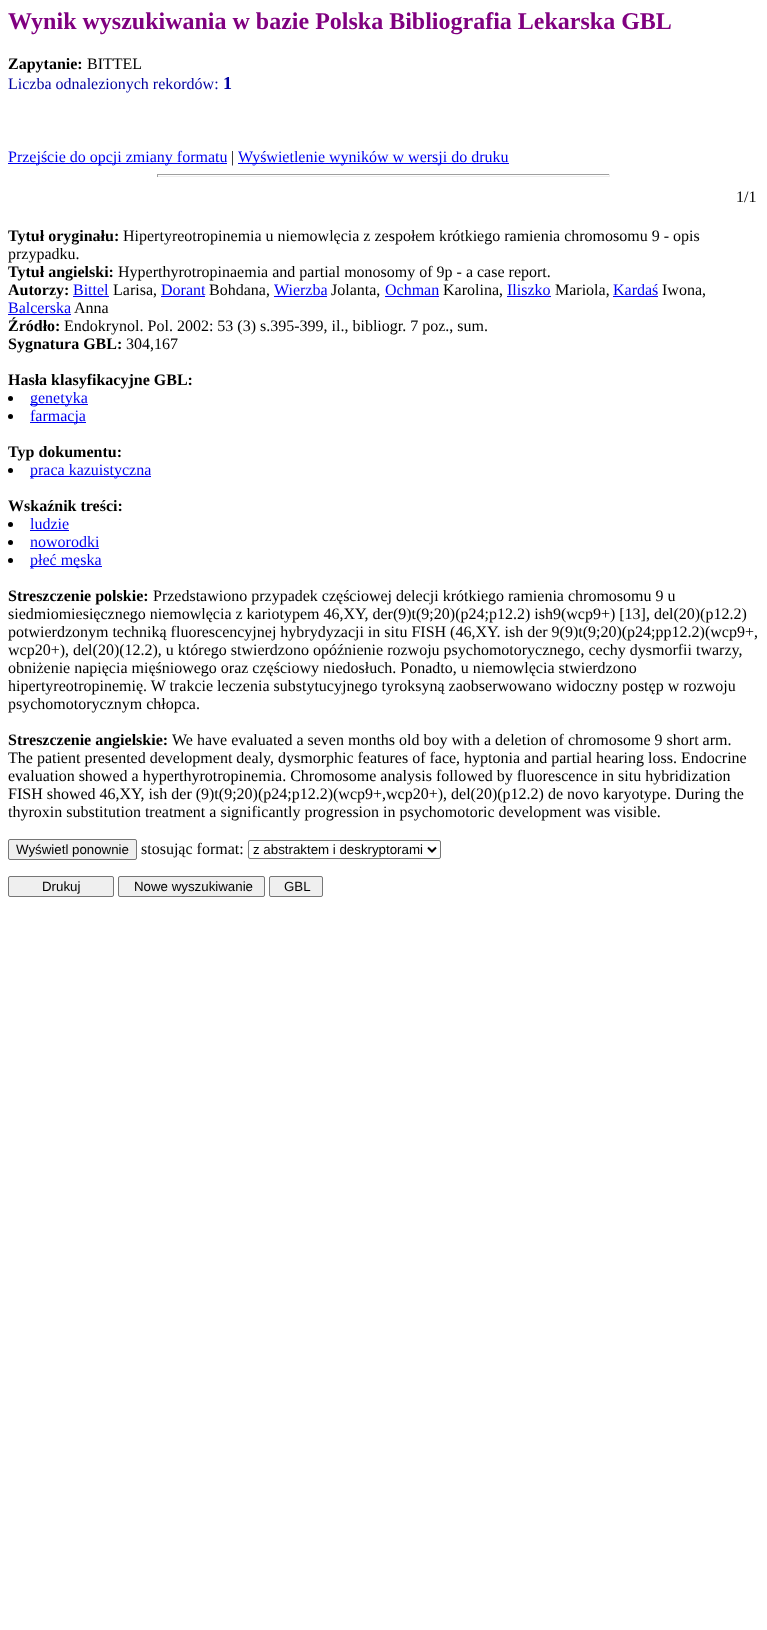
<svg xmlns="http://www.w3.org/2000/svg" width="767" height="1630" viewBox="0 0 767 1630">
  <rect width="100%" height="100%" fill="#ffffff"/>
  <text x="8" y="29" font-family="Liberation Serif" font-size="24" font-weight="bold" fill="#800080">Wynik wyszukiwania w bazie Polska Bibliografia Lekarska GBL</text>
  <text x="8" y="69" font-family="Liberation Serif" font-size="16" font-weight="bold" fill="#000000">Zapytanie:</text>
  <text x="87" y="69" font-family="Liberation Serif" font-size="16" fill="#000000">BITTEL</text>
  <text x="8" y="89" font-family="Liberation Serif" font-size="16" fill="#0000a0">Liczba odnalezionych rekordów:</text>
  <text x="223" y="89" font-family="Liberation Serif" font-size="18" font-weight="bold" fill="#0000a0">1</text>
  <rect x="8" y="163" width="219" height="1" fill="#0000ee"/>
  <text x="8" y="162" font-family="Liberation Serif" font-size="16" fill="#0000ee">Przejście do opcji zmiany formatu</text>
  <text x="231" y="162" font-family="Liberation Serif" font-size="16" fill="#000000">|</text>
  <rect x="238" y="163" width="271" height="1" fill="#0000ee"/>
  <text x="238" y="162" font-family="Liberation Serif" font-size="16" fill="#0000ee">Wyświetlenie wyników w wersji do druku</text>
  <rect x="157" y="174" width="453" height="1" fill="#9f9f9f"/>
  <rect x="609" y="174" width="1" height="3" fill="#eeeeee"/>
  <rect x="157" y="176" width="453" height="1" fill="#eeeeee"/>
  <rect x="157" y="174" width="1" height="3" fill="#9f9f9f"/>
  <text x="736" y="202" font-family="Liberation Serif" font-size="16" fill="#000000">1/1</text>
  <text x="8" y="241" font-family="Liberation Serif" font-size="16" font-weight="bold" fill="#000000">Tytuł oryginału:</text>
  <text x="123" y="241" font-family="Liberation Serif" font-size="16" fill="#000000">Hipertyreotropinemia u niemowlęcia z zespołem krótkiego ramienia chromosomu 9 - opis</text>
  <text x="8" y="259" font-family="Liberation Serif" font-size="16" fill="#000000">przypadku.</text>
  <text x="8" y="277" font-family="Liberation Serif" font-size="16" font-weight="bold" fill="#000000">Tytuł angielski:</text>
  <text x="118" y="277" font-family="Liberation Serif" font-size="16" fill="#000000">Hyperthyrotropinaemia and partial monosomy of 9p - a case report.</text>
  <text x="8" y="295" font-family="Liberation Serif" font-size="16" font-weight="bold" fill="#000000">Autorzy:</text>
  <text x="73" y="295" font-family="Liberation Serif" font-size="16" fill="#0000ee">Bittel</text>
  <rect x="73" y="296" width="36" height="1" fill="#0000ee"/>
  <text x="113" y="295" font-family="Liberation Serif" font-size="16" fill="#000000">Larisa,</text>
  <text x="161" y="295" font-family="Liberation Serif" font-size="16" fill="#0000ee">Dorant</text>
  <rect x="161" y="296" width="44" height="1" fill="#0000ee"/>
  <text x="209" y="295" font-family="Liberation Serif" font-size="16" fill="#000000">Bohdana,</text>
  <text x="274" y="295" font-family="Liberation Serif" font-size="16" fill="#0000ee">Wierzba</text>
  <rect x="274" y="296" width="53" height="1" fill="#0000ee"/>
  <text x="331" y="295" font-family="Liberation Serif" font-size="16" fill="#000000">Jolanta,</text>
  <text x="385" y="295" font-family="Liberation Serif" font-size="16" fill="#0000ee">Ochman</text>
  <rect x="385" y="296" width="54" height="1" fill="#0000ee"/>
  <text x="443" y="295" font-family="Liberation Serif" font-size="16" fill="#000000">Karolina,</text>
  <text x="507" y="295" font-family="Liberation Serif" font-size="16" fill="#0000ee">Iliszko</text>
  <rect x="507" y="296" width="44" height="1" fill="#0000ee"/>
  <text x="555" y="295" font-family="Liberation Serif" font-size="16" fill="#000000">Mariola,</text>
  <text x="613" y="295" font-family="Liberation Serif" font-size="16" fill="#0000ee">Kardaś</text>
  <rect x="613" y="296" width="45" height="1" fill="#0000ee"/>
  <text x="662" y="295" font-family="Liberation Serif" font-size="16" fill="#000000">Iwona,</text>
  <text x="8" y="313" font-family="Liberation Serif" font-size="16" fill="#0000ee">Balcerska</text>
  <rect x="8" y="314" width="63" height="1" fill="#0000ee"/>
  <text x="74" y="313" font-family="Liberation Serif" font-size="16" fill="#000000">Anna</text>
  <text x="8" y="331" font-family="Liberation Serif" font-size="16" font-weight="bold" fill="#000000">Źródło:</text>
  <text x="64" y="331" font-family="Liberation Serif" font-size="16" fill="#000000">Endokrynol. Pol. 2002: 53 (3) s.395-399, il., bibliogr. 7 poz., sum.</text>
  <text x="8" y="349" font-family="Liberation Serif" font-size="16" font-weight="bold" fill="#000000">Sygnatura GBL:</text>
  <text x="126" y="349" font-family="Liberation Serif" font-size="16" fill="#000000">304,167</text>
  <text x="8" y="385" font-family="Liberation Serif" font-size="16" font-weight="bold" fill="#000000">Hasła klasyfikacyjne GBL:</text>
  <circle cx="10.5" cy="398.5" r="2.5" fill="#000000"/>
  <rect x="30" y="404" width="58" height="1" fill="#0000ee"/>
  <text x="30" y="403" font-family="Liberation Serif" font-size="16" fill="#0000ee">genetyka</text>
  <circle cx="10.5" cy="416.5" r="2.5" fill="#000000"/>
  <rect x="30" y="422" width="56" height="1" fill="#0000ee"/>
  <text x="30" y="421" font-family="Liberation Serif" font-size="16" fill="#0000ee">farmacja</text>
  <text x="8" y="457" font-family="Liberation Serif" font-size="16" font-weight="bold" fill="#000000">Typ dokumentu:</text>
  <circle cx="10.5" cy="470.5" r="2.5" fill="#000000"/>
  <rect x="30" y="476" width="121" height="1" fill="#0000ee"/>
  <text x="30" y="475" font-family="Liberation Serif" font-size="16" fill="#0000ee">praca kazuistyczna</text>
  <text x="8" y="511" font-family="Liberation Serif" font-size="16" font-weight="bold" fill="#000000">Wskaźnik treści:</text>
  <circle cx="10.5" cy="524.5" r="2.5" fill="#000000"/>
  <text x="30" y="529" font-family="Liberation Serif" font-size="16" fill="#0000ee">ludzie</text>
  <rect x="30" y="530" width="39" height="1" fill="#0000ee"/>
  <circle cx="10.5" cy="542.5" r="2.5" fill="#000000"/>
  <text x="30" y="547" font-family="Liberation Serif" font-size="16" fill="#0000ee">noworodki</text>
  <rect x="30" y="548" width="69" height="1" fill="#0000ee"/>
  <circle cx="10.5" cy="560.5" r="2.5" fill="#000000"/>
  <rect x="30" y="566" width="72" height="1" fill="#0000ee"/>
  <text x="30" y="565" font-family="Liberation Serif" font-size="16" fill="#0000ee">płeć męska</text>
  <text x="8" y="601" font-family="Liberation Serif" font-size="16" font-weight="bold" fill="#000000">Streszczenie polskie:</text>
  <text x="153" y="601" font-family="Liberation Serif" font-size="16" fill="#000000">Przedstawiono przypadek częściowej delecji krótkiego ramienia chromosomu 9 u</text>
  <text x="8" y="619" font-family="Liberation Serif" font-size="16" fill="#000000">siedmiomiesięcznego niemowlęcia z kariotypem 46,XY, der(9)t(9;20)(p24;p12.2) ish9(wcp9+) [13], del(20)(p12.2)</text>
  <text x="8" y="637" font-family="Liberation Serif" font-size="16" fill="#000000">potwierdzonym techniką fluorescencyjnej hybrydyzacji in situ FISH (46,XY. ish der 9(9)t(9;20)(p24;pp12.2)(wcp9+,</text>
  <text x="8" y="655" font-family="Liberation Serif" font-size="16" fill="#000000">wcp20+), del(20)(12.2), u którego stwierdzono opóźnienie rozwoju psychomotorycznego, cechy dysmorfii twarzy,</text>
  <text x="8" y="673" font-family="Liberation Serif" font-size="16" fill="#000000">obniżenie napięcia mięśniowego oraz częściowy niedosłuch. Ponadto, u niemowlęcia stwierdzono</text>
  <text x="8" y="691" font-family="Liberation Serif" font-size="16" fill="#000000">hipertyreotropinemię. W trakcie leczenia substytucyjnego tyroksyną zaobserwowano widoczny postęp w rozwoju</text>
  <text x="8" y="709" font-family="Liberation Serif" font-size="16" fill="#000000">psychomotorycznym chłopca.</text>
  <text x="8" y="745" font-family="Liberation Serif" font-size="16" font-weight="bold" fill="#000000">Streszczenie angielskie:</text>
  <text x="172" y="745" font-family="Liberation Serif" font-size="16" fill="#000000">We have evaluated a seven months old boy with a deletion of chromosome 9 short arm.</text>
  <text x="8" y="763" font-family="Liberation Serif" font-size="16" fill="#000000">The patient presented development dealy, dysmorphic features of face, hyptonia and partial hearing loss. Endocrine</text>
  <text x="8" y="781" font-family="Liberation Serif" font-size="16" fill="#000000">evaluation showed a hyperthyrotropinemia. Chromosome analysis followed by fluorescence in situ hybridization</text>
  <text x="8" y="799" font-family="Liberation Serif" font-size="16" fill="#000000">FISH showed 46,XY, ish der (9)t(9;20)(p24;p12.2)(wcp9+,wcp20+), del(20)(p12.2) de novo karyotype. During the</text>
  <text x="8" y="817" font-family="Liberation Serif" font-size="16" fill="#000000">thyroxin substitution treatment a significantly progression in psychomotoric development was visible.</text>
  <rect x="8.5" y="839.5" width="128" height="20" rx="1.5" fill="#efefef" stroke="#767676"/>
  <text x="16" y="854" font-family="Liberation Sans" font-size="13.3" fill="#000000">Wyświetl ponownie</text>
  <text x="141" y="854" font-family="Liberation Serif" font-size="16" fill="#000000">stosując format:</text>
  <rect x="248.5" y="840.5" width="192" height="18" rx="1.5" fill="none" stroke="#767676"/>
  <path d="M428 847.5L432 851.5L436 847.5" fill="none" stroke="#000000" stroke-width="2"/>
  <text x="253" y="854" font-family="Liberation Sans" font-size="13.3" fill="#000000">z abstraktem i deskryptorami</text>
  <rect x="8.5" y="876.5" width="105" height="20" rx="1.5" fill="#efefef" stroke="#767676"/>
  <text x="42" y="891" font-family="Liberation Sans" font-size="13.3" fill="#000000">Drukuj</text>
  <rect x="118.5" y="876.5" width="146" height="20" rx="1.5" fill="#efefef" stroke="#767676"/>
  <text x="134" y="891" font-family="Liberation Sans" font-size="13.3" fill="#000000">Nowe wyszukiwanie</text>
  <rect x="269.5" y="876.5" width="53" height="20" rx="1.5" fill="#efefef" stroke="#767676"/>
  <text x="284" y="891" font-family="Liberation Sans" font-size="13.3" fill="#000000">GBL</text>
</svg>
